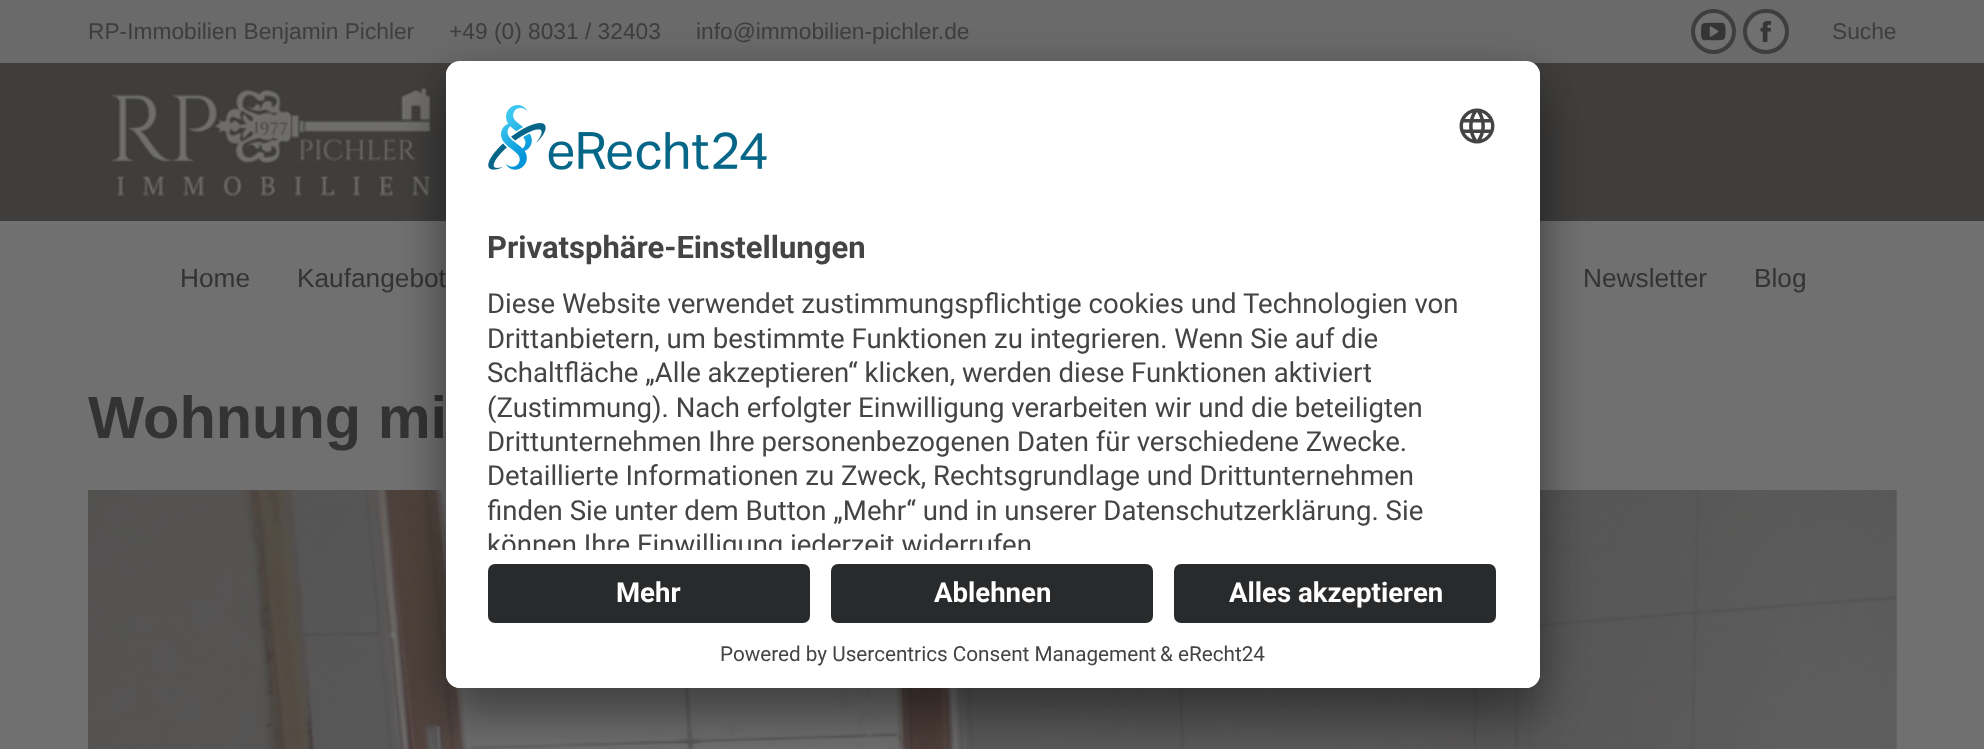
<svg xmlns="http://www.w3.org/2000/svg" width="1984" height="749" viewBox="0 0 1984 749">
  <defs>
    <filter id="blur1" x="-50%" y="-200%" width="200%" height="500%"><feGaussianBlur stdDeviation="24.5"/></filter>
    <filter id="blur2" x="-50%" y="-200%" width="200%" height="500%"><feGaussianBlur stdDeviation="23"/></filter>
    <clipPath id="clip1"><rect x="446" y="61" width="1094" height="627" rx="14"/></clipPath>
    <clipPath id="clip2"><path d="M460 61H1526C1533.5 61 1540 67.5 1540 75V550H446V75C446 67.5 452.5 61 460 61Z"/></clipPath>
    <clipPath id="clip3"><rect x="488" y="280" width="1010" height="270"/></clipPath>
  </defs>
  <rect width="100%" height="100%" fill="#707070"/>
  <rect x="0" y="63" width="1984" height="158" fill="#3f3e3d"/>
  <rect x="0" y="0" width="1984" height="63" fill="#6a6a6a"/>
  <text x="88" y="39" font-family="Liberation Sans" font-size="22.75" fill="#3f3e3d">RP-Immobilien Benjamin Pichler</text>
  <text x="449" y="39" font-family="Liberation Sans" font-size="22.75" fill="#3f3e3d">+49 (0) 8031 / 32403</text>
  <text x="696" y="39" font-family="Liberation Sans" font-size="22.75" fill="#3f3e3d">info@immobilien-pichler.de</text>
  <circle cx="1713.5" cy="31.5" r="20.5" fill="#707070" stroke="#3f3e3d" stroke-width="4"/>
  <image x="1701" y="22" width="25" height="19" href="img1.png"/>
  <rect x="1745" y="11" width="42" height="41" rx="20.5" fill="#707070" stroke="#3f3e3d" stroke-width="4"/>
  <image x="1760" y="21" width="12" height="21" href="img2.png"/>
  <text x="1832" y="39" font-family="Liberation Sans" font-size="22.75" fill="#3f3e3d">Suche</text>
  <image x="111" y="86" width="321" height="112" href="img3.png"/>
  <text x="180" y="287" font-family="Liberation Sans" font-size="26.25" fill="#333333">Home</text>
  <text x="297" y="287" font-family="Liberation Sans" font-size="26.25" fill="#333333">Kaufangebot</text>
  <text x="1583" y="287" font-family="Liberation Sans" font-size="26.25" fill="#333333">Newsletter</text>
  <text x="1754" y="287" font-family="Liberation Sans" font-size="26.25" fill="#333333">Blog</text>
  <text x="88" y="438" font-family="Liberation Sans" font-size="59.5" font-weight="bold" fill="#333333">Wohnung mi</text>
  <image x="88" y="490" width="1809" height="259" href="img4.png"/>
  <rect x="446" y="96" width="1094" height="627" rx="14" fill="#000000" fill-opacity="0.3" filter="url(#blur1)"/>
  <rect x="446" y="70" width="1094" height="627" rx="14" fill="#000000" fill-opacity="0.22" filter="url(#blur2)"/>
  <rect x="446" y="61" width="1094" height="627" rx="14" fill="#ffffff"/>
  <g clip-path="url(#clip1)">
    <g clip-path="url(#clip2)">
      <rect x="446" y="63" width="1094" height="487" fill="#ffffff"/>
    </g>
  </g>
  <image x="488" y="105" width="279" height="65" href="img5.png"/>
  <image x="1459" y="108" width="36" height="36" href="img6.png"/>
  <text x="487" y="258" font-family="Roboto" font-size="31" font-weight="bold" fill="#444444">Privatsphäre-Einstellungen</text>
  <text x="487" y="313" font-family="Roboto" font-size="27.55" fill="#444444">Diese Website verwendet zustimmungspflichtige cookies und Technologien von</text>
  <text x="487" y="348" font-family="Roboto" font-size="27.55" fill="#444444">Drittanbietern, um bestimmte Funktionen zu integrieren. Wenn Sie auf die</text>
  <text x="487" y="382" font-family="Roboto" font-size="27.55" fill="#444444">Schaltfläche „Alle akzeptieren“ klicken, werden diese Funktionen aktiviert</text>
  <text x="487" y="417" font-family="Roboto" font-size="27.55" fill="#444444">(Zustimmung). Nach erfolgter Einwilligung verarbeiten wir und die beteiligten</text>
  <text x="487" y="451" font-family="Roboto" font-size="27.55" fill="#444444">Drittunternehmen Ihre personenbezogenen Daten für verschiedene Zwecke.</text>
  <text x="487" y="485" font-family="Roboto" font-size="27.55" fill="#444444">Detaillierte Informationen zu Zweck, Rechtsgrundlage und Drittunternehmen</text>
  <g clip-path="url(#clip3)">
    <text x="487" y="520" font-family="Roboto" font-size="27.55" fill="#444444">finden Sie unter dem Button „Mehr“ und in unserer Datenschutzerklärung. Sie</text>
  </g>
  <g clip-path="url(#clip2)">
    <text x="487" y="554" font-family="Roboto" font-size="27.55" fill="#444444">können Ihre Einwilligung jederzeit widerrufen</text>
  </g>
  <path d="M446 550H1540V674C1540 681.5 1533.5 688 1526 688H460C452.5 688 446 681.5 446 674Z" fill="#ffffff"/>
  <rect x="488" y="564" width="322" height="59" rx="7" fill="#292a2b"/>
  <text x="616" y="602" font-family="Roboto" font-size="27.55" font-weight="bold" fill="#ffffff">Mehr</text>
  <rect x="831" y="564" width="322" height="59" rx="7" fill="#292a2b"/>
  <text x="934" y="602" font-family="Roboto" font-size="27.55" font-weight="bold" fill="#ffffff">Ablehnen</text>
  <rect x="1174" y="564" width="322" height="59" rx="7" fill="#292a2b"/>
  <text x="1229" y="602" font-family="Roboto" font-size="27.55" font-weight="bold" fill="#ffffff">Alles akzeptieren</text>
  <text x="720" y="661" font-family="Roboto" font-size="20.7" fill="#444444">Powered by Usercentrics Consent Management</text>
  <text x="1160" y="661" font-family="Roboto" font-size="20.7" fill="#444444">&amp; eRecht24</text>
</svg>
